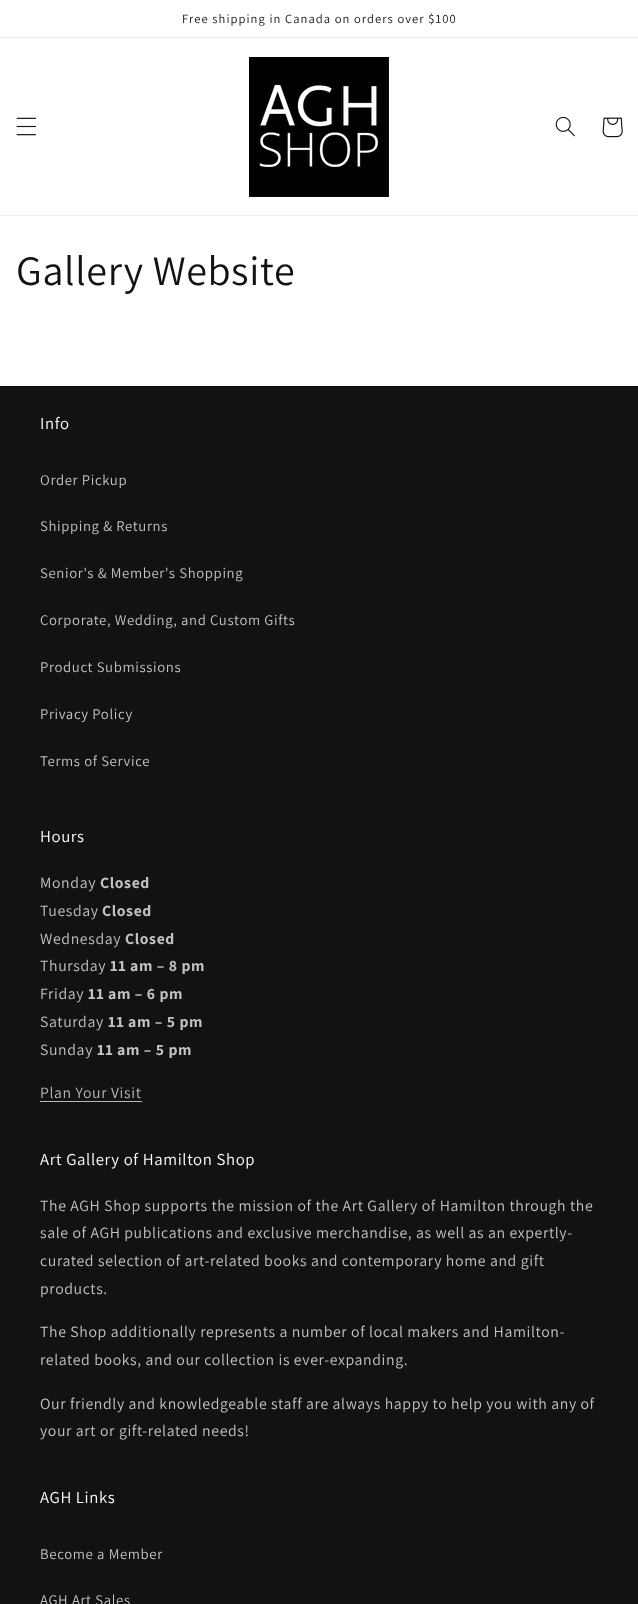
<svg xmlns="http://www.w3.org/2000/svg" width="638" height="1604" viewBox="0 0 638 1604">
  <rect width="100%" height="100%" fill="#ffffff"/>
  <rect x="0" y="37" width="638" height="1" fill="#ececec"/>
  <text x="182" y="23" font-family="Assistant" font-size="12.6" letter-spacing="1.05" fill="#121212">Free shipping in Canada on orders over $100</text>
  <rect x="0" y="215" width="638" height="1" fill="#ececec"/>
  <image x="16" y="117" width="20" height="19" href="img1.png"/>
  <image x="249" y="57" width="140" height="140" href="img2.png"/>
  <image x="555" y="116" width="20" height="21" href="img3.png"/>
  <image x="602" y="117" width="21" height="21" href="img4.png"/>
  <text x="16" y="285" font-family="Assistant" font-size="42" letter-spacing="0.63" fill="#121212">Gallery Website</text>
  <rect x="0" y="386" width="638" height="1218" fill="#121212"/>
  <text x="40" y="429" font-family="Assistant" font-size="16.75" letter-spacing="0.63" fill="#fffdfd">Info</text>
  <text x="40" y="485" font-family="Assistant" font-size="14.75" letter-spacing="0.63" fill="#c4c2c2">Order Pickup</text>
  <text x="40" y="531" font-family="Assistant" font-size="14.75" letter-spacing="0.63" fill="#c4c2c2">Shipping &amp; Returns</text>
  <text x="40" y="578" font-family="Assistant" font-size="14.75" letter-spacing="0.63" fill="#c4c2c2">Senior's &amp; Member's Shopping</text>
  <text x="40" y="625" font-family="Assistant" font-size="14.75" letter-spacing="0.63" fill="#c4c2c2">Corporate, Wedding, and Custom Gifts</text>
  <text x="40" y="672" font-family="Assistant" font-size="14.75" letter-spacing="0.63" fill="#c4c2c2">Product Submissions</text>
  <text x="40" y="719" font-family="Assistant" font-size="14.75" letter-spacing="0.63" fill="#c4c2c2">Privacy Policy</text>
  <text x="40" y="766" font-family="Assistant" font-size="14.75" letter-spacing="0.63" fill="#c4c2c2">Terms of Service</text>
  <text x="40" y="842" font-family="Assistant" font-size="16.75" letter-spacing="0.63" fill="#fffdfd">Hours</text>
  <text x="40" y="888" font-family="Assistant" font-size="15.75" letter-spacing="0.63" fill="#c4c2c2">Monday</text>
  <text x="100" y="888" font-family="Assistant" font-size="15.75" font-weight="bold" letter-spacing="0.63" fill="#c4c2c2">Closed</text>
  <text x="40" y="916" font-family="Assistant" font-size="15.75" letter-spacing="0.63" fill="#c4c2c2">Tuesday</text>
  <text x="102" y="916" font-family="Assistant" font-size="15.75" font-weight="bold" letter-spacing="0.63" fill="#c4c2c2">Closed</text>
  <text x="40" y="944" font-family="Assistant" font-size="15.75" letter-spacing="0.63" fill="#c4c2c2">Wednesday</text>
  <text x="125" y="944" font-family="Assistant" font-size="15.75" font-weight="bold" letter-spacing="0.63" fill="#c4c2c2">Closed</text>
  <text x="40" y="971" font-family="Assistant" font-size="15.75" letter-spacing="0.63" fill="#c4c2c2">Thursday</text>
  <text x="110" y="971" font-family="Assistant" font-size="15.75" font-weight="bold" letter-spacing="0.63" fill="#c4c2c2">11 am – 8 pm</text>
  <text x="40" y="999" font-family="Assistant" font-size="15.75" letter-spacing="0.63" fill="#c4c2c2">Friday</text>
  <text x="88" y="999" font-family="Assistant" font-size="15.75" font-weight="bold" letter-spacing="0.63" fill="#c4c2c2">11 am – 6 pm</text>
  <text x="40" y="1027" font-family="Assistant" font-size="15.75" letter-spacing="0.63" fill="#c4c2c2">Saturday</text>
  <text x="108" y="1027" font-family="Assistant" font-size="15.75" font-weight="bold" letter-spacing="0.63" fill="#c4c2c2">11 am – 5 pm</text>
  <text x="40" y="1055" font-family="Assistant" font-size="15.75" letter-spacing="0.63" fill="#c4c2c2">Sunday</text>
  <text x="97" y="1055" font-family="Assistant" font-size="15.75" font-weight="bold" letter-spacing="0.63" fill="#c4c2c2">11 am – 5 pm</text>
  <text x="40" y="1098" font-family="Assistant" font-size="15.75" letter-spacing="0.63" fill="#b8b7b7">Plan Your Visit</text>
  <rect x="40" y="1101" width="102" height="1" fill="#b8b7b7"/>
  <text x="40" y="1165" font-family="Assistant" font-size="16.75" letter-spacing="0.63" fill="#fffdfd">Art Gallery of Hamilton Shop</text>
  <text x="40" y="1211" font-family="Assistant" font-size="15.75" letter-spacing="0.63" fill="#c4c2c2">The AGH Shop supports the mission of the Art Gallery of Hamilton through the</text>
  <text x="40" y="1238" font-family="Assistant" font-size="15.75" letter-spacing="0.63" fill="#c4c2c2">sale of AGH publications and exclusive merchandise, as well as an expertly-</text>
  <text x="40" y="1266" font-family="Assistant" font-size="15.75" letter-spacing="0.63" fill="#c4c2c2">curated selection of art-related books and contemporary home and gift</text>
  <text x="40" y="1294" font-family="Assistant" font-size="15.75" letter-spacing="0.63" fill="#c4c2c2">products.</text>
  <text x="40" y="1337" font-family="Assistant" font-size="15.75" letter-spacing="0.63" fill="#c4c2c2">The Shop additionally represents a number of local makers and Hamilton-</text>
  <text x="40" y="1365" font-family="Assistant" font-size="15.75" letter-spacing="0.63" fill="#c4c2c2">related books, and our collection is ever-expanding.</text>
  <text x="40" y="1409" font-family="Assistant" font-size="15.75" letter-spacing="0.63" fill="#c4c2c2">Our friendly and knowledgeable staff are always happy to help you with any of</text>
  <text x="40" y="1436" font-family="Assistant" font-size="15.75" letter-spacing="0.63" fill="#c4c2c2">your art or gift-related needs!</text>
  <text x="40" y="1503" font-family="Assistant" font-size="16.75" letter-spacing="0.63" fill="#fffdfd">AGH Links</text>
  <text x="40" y="1559" font-family="Assistant" font-size="14.75" letter-spacing="0.63" fill="#c4c2c2">Become a Member</text>
  <text x="40" y="1605" font-family="Assistant" font-size="14.75" letter-spacing="0.63" fill="#c4c2c2">AGH Art Sales</text>
</svg>
